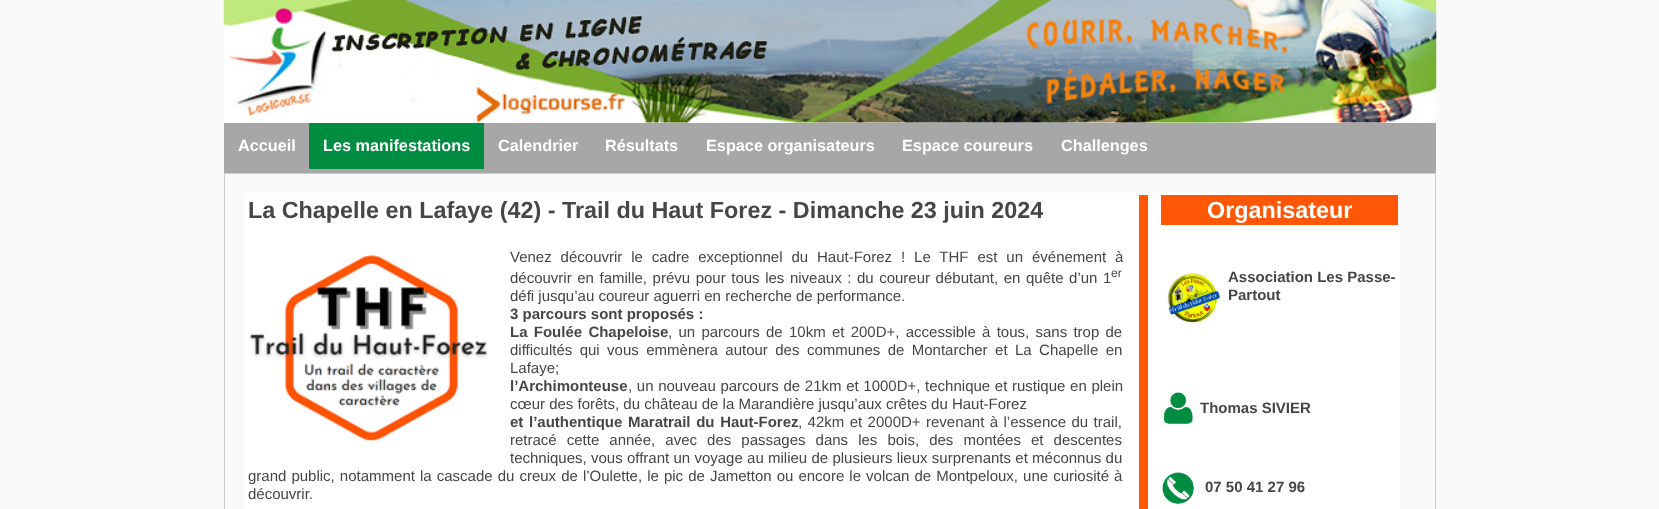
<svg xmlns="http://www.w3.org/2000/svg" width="1659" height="509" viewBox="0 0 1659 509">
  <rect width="100%" height="100%" fill="#fafafa"/>
  <image x="223" y="0" width="1214" height="123" href="img1.png"/>
  <rect x="224" y="123" width="1212" height="50" fill="#a8a7a7"/>
  <text x="238" y="151" font-family="Liberation Sans" font-size="16.25" font-weight="bold" fill="#ffffff">Accueil</text>
  <rect x="309" y="123" width="175" height="46" fill="#008c41"/>
  <text x="323" y="151" font-family="Liberation Sans" font-size="16.25" font-weight="bold" fill="#ffffff">Les manifestations</text>
  <text x="498" y="151" font-family="Liberation Sans" font-size="16.25" font-weight="bold" fill="#ffffff">Calendrier</text>
  <text x="605" y="151" font-family="Liberation Sans" font-size="16.25" font-weight="bold" fill="#ffffff">Résultats</text>
  <text x="706" y="151" font-family="Liberation Sans" font-size="16.25" font-weight="bold" fill="#ffffff">Espace organisateurs</text>
  <text x="902" y="151" font-family="Liberation Sans" font-size="16.25" font-weight="bold" fill="#ffffff">Espace coureurs</text>
  <text x="1061" y="151" font-family="Liberation Sans" font-size="16.25" font-weight="bold" fill="#ffffff">Challenges</text>
  <rect x="224" y="173" width="1212" height="1" fill="#cccccc"/>
  <rect x="1435" y="173" width="1" height="336" fill="#cccccc"/>
  <rect x="224" y="173" width="1" height="336" fill="#cccccc"/>
  <rect x="244" y="193" width="1156" height="316" fill="#ffffff"/>
  <text x="248" y="218" font-family="Liberation Sans" font-size="23.35" font-weight="bold" fill="#464646">La Chapelle en Lafaye (42) - Trail du Haut Forez - Dimanche 23 juin 2024</text>
  <rect x="1139" y="195" width="9" height="314" fill="#ff5706"/>
  <rect x="1161" y="195" width="237" height="30" fill="#ff5706"/>
  <text x="1207" y="218" font-family="Liberation Sans" font-size="23.35" font-weight="bold" fill="#ffffff">Organisateur</text>
  <text x="510" y="262" word-spacing="4.75" font-family="Liberation Sans" font-size="15" fill="#464646">Venez découvrir le cadre exceptionnel du Haut-Forez ! Le THF est un événement à</text>
  <text x="510" y="283" word-spacing="1.4" font-family="Liberation Sans" font-size="15" fill="#464646">découvrir en famille, prévu pour tous les niveaux : du coureur débutant, en quête d’un 1</text>
  <text x="1111" y="277" font-family="Liberation Sans" font-size="12" fill="#464646">er</text>
  <text x="510" y="301" font-family="Liberation Sans" font-size="15" fill="#464646">défi jusqu’au coureur aguerri en recherche de performance.</text>
  <text x="510" y="319" font-family="Liberation Sans" font-size="15" font-weight="bold" fill="#464646">3 parcours sont proposés :</text>
  <text x="510" y="337" word-spacing="2.1" font-family="Liberation Sans" font-size="15" font-weight="bold" fill="#464646">La Foulée Chapeloise</text>
  <text x="668" y="337" word-spacing="2.1" font-family="Liberation Sans" font-size="15" fill="#464646">, un parcours de 10km et 200D+, accessible à tous, sans trop de</text>
  <text x="510" y="355" word-spacing="3.25" font-family="Liberation Sans" font-size="15" fill="#464646">difficultés qui vous emmènera autour des communes de Montarcher et La Chapelle en</text>
  <text x="510" y="373" font-family="Liberation Sans" font-size="15" fill="#464646">Lafaye;</text>
  <text x="510" y="391" font-family="Liberation Sans" font-size="15" font-weight="bold" fill="#464646">l’Archimonteuse</text>
  <text x="628" y="391" word-spacing="0.5" font-family="Liberation Sans" font-size="15" fill="#464646">, un nouveau parcours de 21km et 1000D+, technique et rustique en plein</text>
  <text x="510" y="409" font-family="Liberation Sans" font-size="15" fill="#464646">cœur des forêts, du château de la Marandière jusqu’aux crêtes du Haut-Forez</text>
  <text x="510" y="427" word-spacing="1.5" font-family="Liberation Sans" font-size="15" font-weight="bold" fill="#464646">et l’authentique Maratrail du Haut-Forez</text>
  <text x="798" y="427" word-spacing="1.25" font-family="Liberation Sans" font-size="15" fill="#464646">, 42km et 2000D+ revenant à l’essence du trail,</text>
  <text x="510" y="445" word-spacing="5.9" font-family="Liberation Sans" font-size="15" fill="#464646">retracé cette année, avec des passages dans les bois, des montées et descentes</text>
  <text x="510" y="463" word-spacing="0.1" font-family="Liberation Sans" font-size="15" fill="#464646">techniques, vous offrant un voyage au milieu de plusieurs lieux surprenants et méconnus du</text>
  <text x="248" y="481" word-spacing="0.9" font-family="Liberation Sans" font-size="15" fill="#464646">grand public, notamment la cascade du creux de l’Oulette, le pic de Jametton ou encore le volcan de Montpeloux, une curiosité à</text>
  <text x="248" y="499" font-family="Liberation Sans" font-size="15" fill="#464646">découvrir.</text>
  <image x="249" y="254" width="239" height="188" href="img2.png"/>
  <image x="1167" y="273" width="54" height="50" href="img3.png"/>
  <text x="1228" y="282" font-family="Liberation Sans" font-size="15" font-weight="bold" fill="#464646">Association Les Passe-</text>
  <text x="1228" y="300" font-family="Liberation Sans" font-size="15" font-weight="bold" fill="#464646">Partout</text>
  <image x="1163" y="392" width="30" height="32" href="img4.png"/>
  <text x="1200" y="413" font-family="Liberation Sans" font-size="15" font-weight="bold" fill="#464646">Thomas SIVIER</text>
  <image x="1162" y="472" width="32" height="32" href="img5.png"/>
  <text x="1205" y="492" font-family="Liberation Sans" font-size="15" font-weight="bold" fill="#464646">07 50 41 27 96</text>
</svg>
